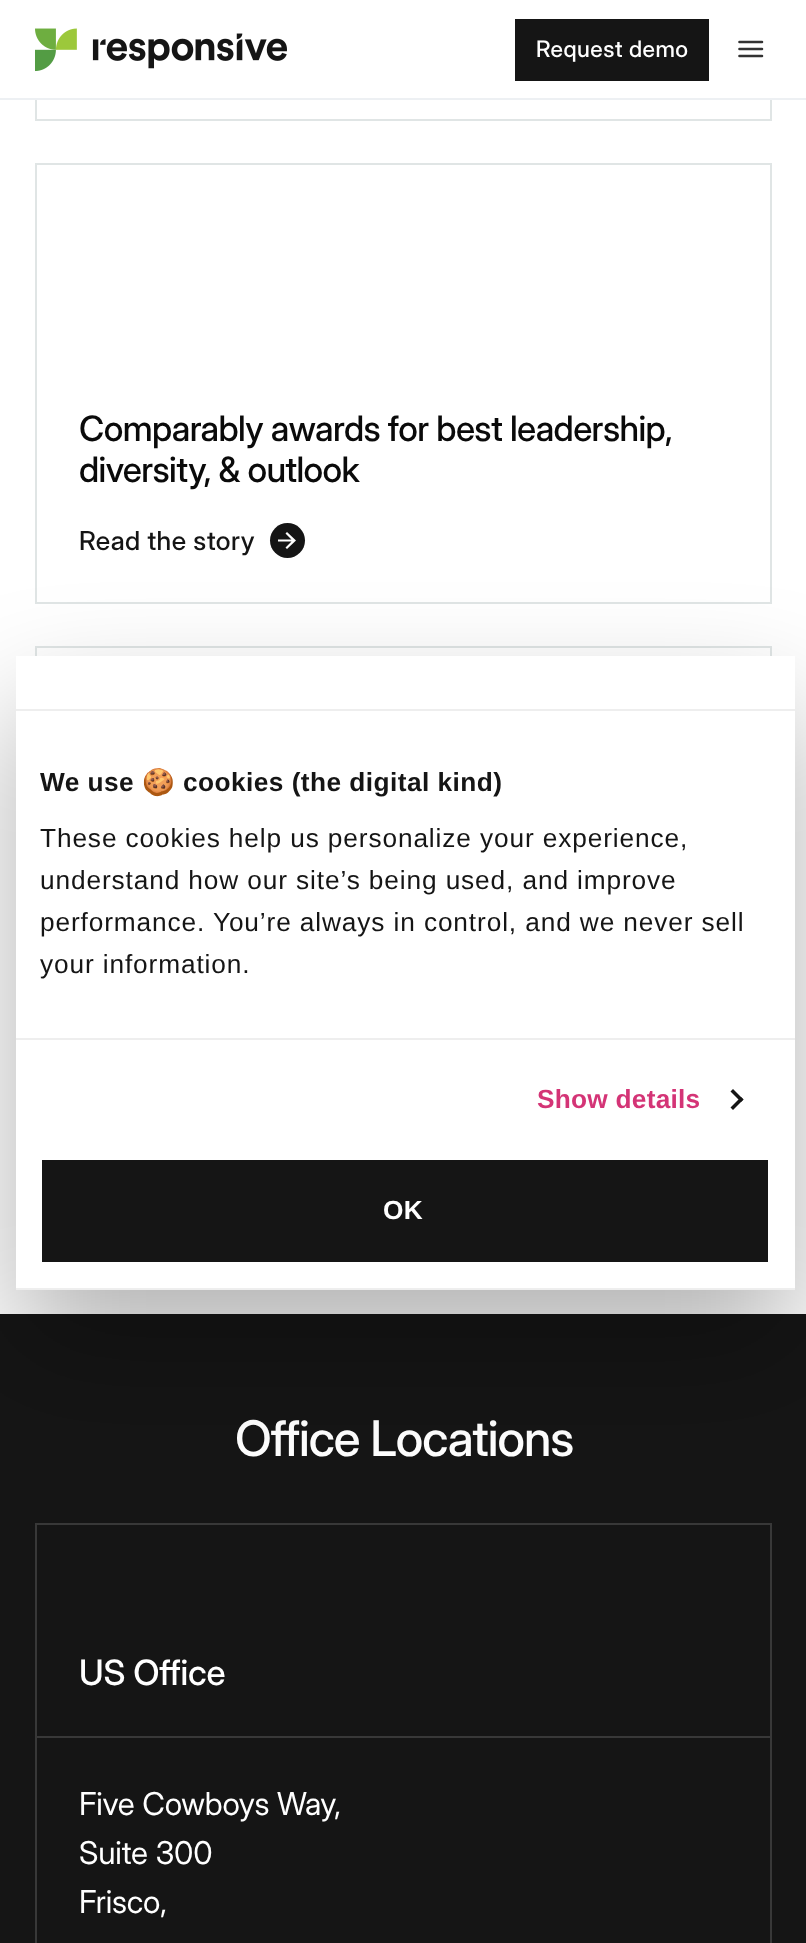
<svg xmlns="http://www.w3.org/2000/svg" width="806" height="1943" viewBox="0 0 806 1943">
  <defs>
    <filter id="blur1" x="-50%" y="-200%" width="200%" height="500%"><feGaussianBlur stdDeviation="59.5"/></filter>
  </defs>
  <rect width="100%" height="100%" fill="#ffffff"/>
  <rect x="36" y="-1" width="735" height="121" fill="none" stroke="#e0e5e5" stroke-width="2"/>
  <rect x="35" y="0" width="737" height="98" fill="#ffffff"/>
  <rect x="0" y="98" width="806" height="2" fill="#edf0f3"/>
  <image x="35" y="28" width="252" height="44" href="img1.png"/>
  <rect x="515" y="19" width="194" height="62" fill="#151515"/>
  <text x="536" y="57" font-family="Inter Display" font-size="22.75" font-weight="500" letter-spacing="0.5" fill="#ffffff">Request demo</text>
  <path d="M739.5 49H762M739.5 56H762M739.5 42H762" fill="none" stroke="#323232" stroke-width="2.6" stroke-linecap="round" stroke-linejoin="round"/>
  <rect x="36" y="164" width="735" height="439" fill="none" stroke="#e0e5e5" stroke-width="2"/>
  <text x="79" y="441" font-family="Inter Display" font-size="35" font-weight="500" letter-spacing="-0.6" fill="#0a0a0a">Comparably awards for best leadership,</text>
  <text x="79" y="482" font-family="Inter Display" font-size="35" font-weight="500" letter-spacing="-0.6" fill="#0a0a0a">diversity, &amp; outlook</text>
  <text x="79" y="550" font-family="Inter Display" font-size="26.25" font-weight="500" letter-spacing="0.5" fill="#151515">Read the story</text>
  <circle cx="287.5" cy="540.5" r="17.5" fill="#151515"/>
  <path d="M291.5 539.5L285.5 533.5L287 532L296 540.5L287 549L285.5 547.5L291.5 541.5H278V539.5Z" fill="#ffffff"/>
  <rect x="36" y="647" width="735" height="441" fill="none" stroke="#e0e5e5" stroke-width="2"/>
  <rect x="0" y="1314" width="806" height="629" fill="#151515"/>
  <text x="235" y="1456" font-family="Inter Display" font-size="49" font-weight="500" letter-spacing="-1" fill="#ffffff">Office Locations</text>
  <rect x="36" y="1524" width="735" height="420" fill="none" stroke="#383838" stroke-width="2"/>
  <text x="79" y="1685" font-family="Inter Display" font-size="35" font-weight="500" letter-spacing="-0.2" fill="#ffffff">US Office</text>
  <rect x="37" y="1736" width="733" height="2" fill="#383838"/>
  <text x="79" y="1815" font-family="Inter Display" font-size="31.5" letter-spacing="-0.2" fill="#ffffff">Five Cowboys Way,</text>
  <text x="79" y="1864" font-family="Inter Display" font-size="31.5" letter-spacing="-0.2" fill="#ffffff">Suite 300</text>
  <text x="79" y="1913" font-family="Inter Display" font-size="31.5" letter-spacing="-0.2" fill="#ffffff">Frisco,</text>
  <rect x="16" y="712" width="779" height="634" fill="#000000" fill-opacity="0.3" filter="url(#blur1)"/>
  <rect x="16" y="656" width="779" height="632" fill="#ffffff"/>
  <rect x="16" y="709" width="779" height="2" fill="#eeeeee"/>
  <rect x="16" y="1038" width="779" height="2" fill="#eeeeee"/>
  <text x="40" y="791" font-family="Liberation Sans" font-size="26.25" font-weight="bold" letter-spacing="0.45" fill="#151515">We use</text>
  <text x="142" y="791" font-family="Noto Color Emoji" font-size="26.25" font-weight="bold" letter-spacing="0.45" fill="#151515">🍪</text>
  <text x="183" y="791" font-family="Liberation Sans" font-size="26.25" font-weight="bold" letter-spacing="0.45" fill="#151515">cookies (the digital kind)</text>
  <text x="40" y="847" font-family="Liberation Sans" font-size="26.25" letter-spacing="0.88" fill="#151515">These cookies help us personalize your experience,</text>
  <text x="40" y="889" font-family="Liberation Sans" font-size="26.25" letter-spacing="0.88" fill="#151515">understand how our site’s being used, and improve</text>
  <text x="40" y="931" font-family="Liberation Sans" font-size="26.25" letter-spacing="0.88" fill="#151515">performance. You’re always in control, and we never sell</text>
  <text x="40" y="973" font-family="Liberation Sans" font-size="26.25" letter-spacing="0.88" fill="#151515">your information.</text>
  <text x="537" y="1108" font-family="Liberation Sans" font-size="26.25" font-weight="bold" letter-spacing="0.25" fill="#d43476">Show details</text>
  <path d="M733 1089L743.5 1099.5L741 1102L730.5 1091.5Z" fill="#151515"/>
  <path d="M741 1097L743.5 1099.5L733 1110L730.5 1107.5Z" fill="#151515"/>
  <rect x="16" y="1288" width="779" height="2" fill="#eeeeee"/>
  <rect x="42" y="1160" width="726" height="102" fill="#151515"/>
  <text x="383" y="1219" font-family="Liberation Sans" font-size="26.25" font-weight="bold" letter-spacing="0.25" fill="#ffffff">OK</text>
</svg>
